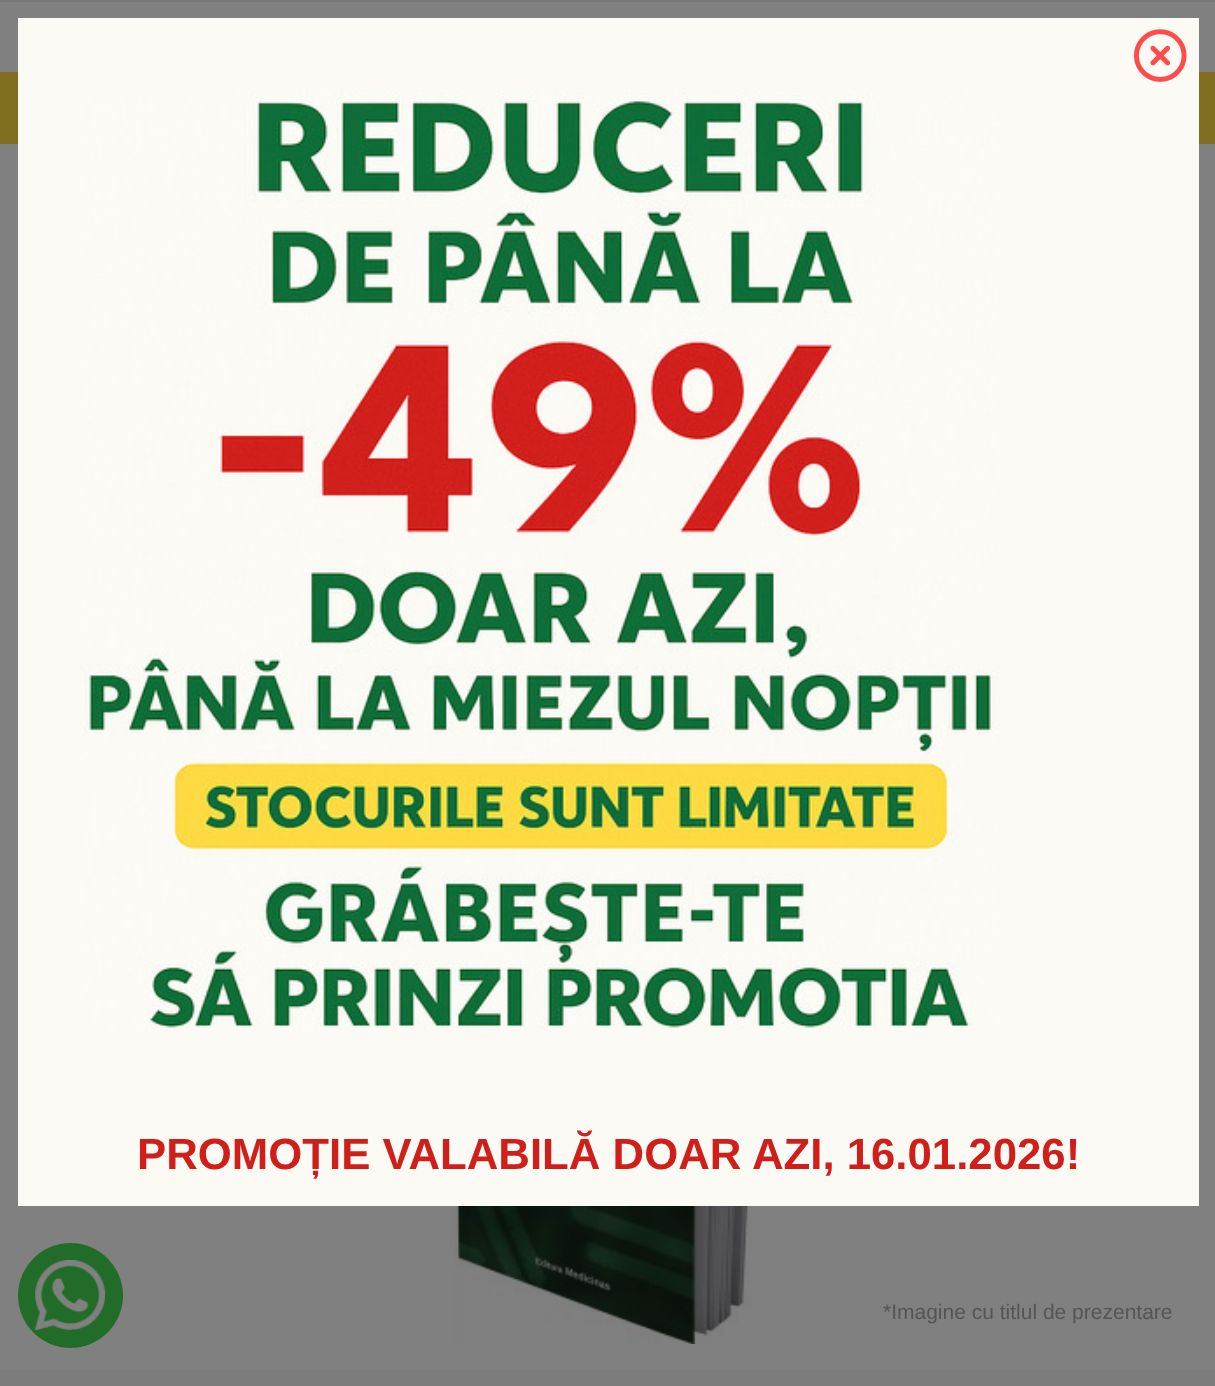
<svg xmlns="http://www.w3.org/2000/svg" width="1215" height="1386" viewBox="0 0 1215 1386">
  <rect width="100%" height="100%" fill="#808080"/>
  <rect x="0" y="72" width="1215" height="72" fill="#806f21"/>
  <rect x="18" y="18" width="1181" height="1188" fill="#fbfaf5"/>
  <image x="1134" y="29" width="53" height="53" href="img1.png"/>
  <image x="79" y="91" width="922" height="938" href="img2.png"/>
  <text x="137" y="1169" font-family="Liberation Sans" font-size="43.75" font-weight="bold" fill="#d01f1b">PROMOȚIE VALABILĂ DOAR AZI, 16.01.2026!</text>
  <circle cx="70.5" cy="1295.5" r="52.5" fill="#226c2a"/>
  <image x="35" y="1260" width="70" height="70" href="img3.png"/>
  <rect x="0" y="0" width="1215" height="2" fill="#777777"/>
  <image x="450" y="1206" width="316" height="138" href="img4.png"/>
  <text x="883" y="1319" font-family="Liberation Sans" font-size="21" fill="#555555">*Imagine cu titlul de prezentare</text>
  <rect x="0" y="1370" width="1215" height="16" fill="#7c7c7c"/>
</svg>
